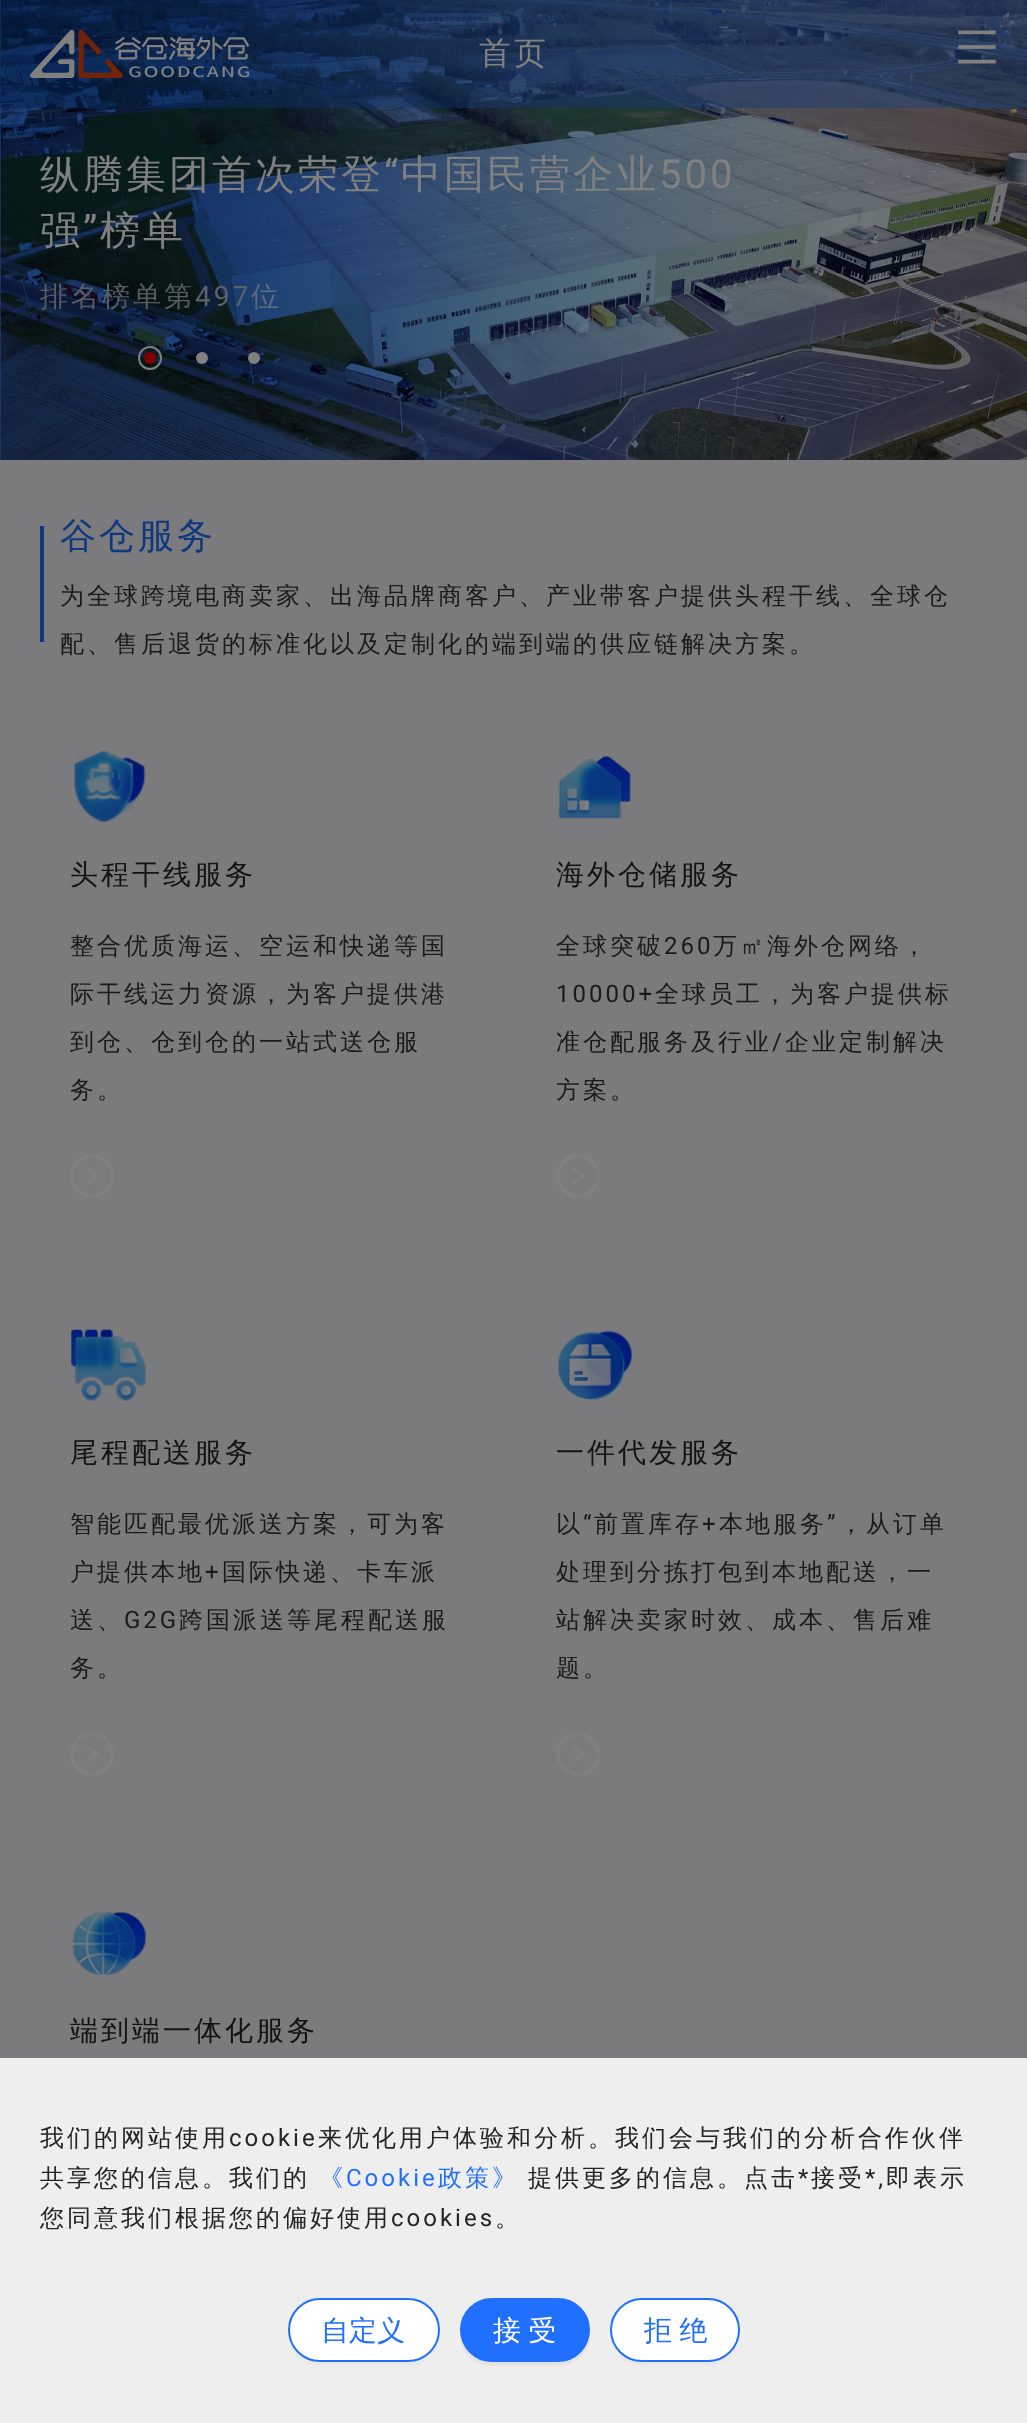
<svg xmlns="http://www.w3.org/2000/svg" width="1027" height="2423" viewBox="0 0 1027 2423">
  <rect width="100%" height="100%" fill="#7b7b7d"/>
  <image x="0" y="0" width="1027" height="460" href="img3.png"/>
  <image x="30" y="30" width="220" height="48" href="img1.png"/>
  <text x="479" y="64" font-family="WenQuanYi Zen Hei" font-size="32" font-weight="500" letter-spacing="3" fill="#808080">首页</text>
  <image x="958" y="30" width="38" height="34" href="img2.png"/>
  <text x="40" y="188" font-family="WenQuanYi Zen Hei" font-size="40" font-weight="500" letter-spacing="3" fill="#808080">纵腾集团首次荣登</text>
  <text x="384" y="188" font-family="Roboto" font-size="40" letter-spacing="3" fill="#808080">“</text>
  <text x="401" y="188" font-family="WenQuanYi Zen Hei" font-size="40" font-weight="500" letter-spacing="3" fill="#808080">中国民营企业</text>
  <text x="659" y="188" font-family="Roboto" font-size="40" letter-spacing="3" fill="#808080">500</text>
  <text x="40" y="244" font-family="WenQuanYi Zen Hei" font-size="40" font-weight="500" letter-spacing="3" fill="#808080">强</text>
  <text x="83" y="244" font-family="Roboto" font-size="40" letter-spacing="3" fill="#808080">”</text>
  <text x="100" y="244" font-family="WenQuanYi Zen Hei" font-size="40" font-weight="500" letter-spacing="3" fill="#808080">榜单</text>
  <text x="40" y="306" font-family="WenQuanYi Zen Hei" font-size="28" font-weight="500" letter-spacing="3" fill="#585d62">排名榜单第</text>
  <text x="195" y="306" font-family="Roboto" font-size="28" letter-spacing="3" fill="#5b626b">497</text>
  <text x="251" y="306" font-family="WenQuanYi Zen Hei" font-size="28" font-weight="500" letter-spacing="3" fill="#5f6b7c">位</text>
  <circle cx="150" cy="358" r="6" fill="#800000"/>
  <circle cx="150" cy="358" r="11" fill="none" stroke="#808080" stroke-width="2"/>
  <circle cx="202" cy="358" r="6" fill="#808080"/>
  <circle cx="254" cy="358" r="6" fill="#808080"/>
  <rect x="40" y="526" width="4" height="116" fill="#103880"/>
  <text x="60" y="548" font-family="WenQuanYi Zen Hei" font-size="36" font-weight="500" letter-spacing="3" fill="#103880">谷仓服务</text>
  <text x="60" y="604" font-family="WenQuanYi Zen Hei" font-size="24" font-weight="500" letter-spacing="3" fill="#1a1a1a">为全球跨境电商卖家、出海品牌商客户、产业带客户提供头程干线、全球仓</text>
  <text x="60" y="652" font-family="WenQuanYi Zen Hei" font-size="24" font-weight="500" letter-spacing="3" fill="#1a1a1a">配、售后退货的标准化以及定制化的端到端的供应链解决方案。</text>
  <image x="73" y="748" width="73" height="75" href="img4.png"/>
  <text x="70" y="884" font-family="WenQuanYi Zen Hei" font-size="28" font-weight="500" letter-spacing="3" fill="#131313">头程干线服务</text>
  <text x="70" y="954" font-family="WenQuanYi Zen Hei" font-size="24" font-weight="500" letter-spacing="3" fill="#1a1a1a">整合优质海运、空运和快递等国</text>
  <text x="70" y="1002" font-family="WenQuanYi Zen Hei" font-size="24" font-weight="500" letter-spacing="3" fill="#1a1a1a">际干线运力资源，为客户提供港</text>
  <text x="70" y="1050" font-family="WenQuanYi Zen Hei" font-size="24" font-weight="500" letter-spacing="3" fill="#1a1a1a">到仓、仓到仓的一站式送仓服</text>
  <text x="70" y="1098" font-family="WenQuanYi Zen Hei" font-size="24" font-weight="500" letter-spacing="3" fill="#1a1a1a">务。</text>
  <image x="70" y="1154" width="44" height="44" href="img5.png"/>
  <image x="558" y="756" width="73" height="63" href="img6.png"/>
  <text x="556" y="884" font-family="WenQuanYi Zen Hei" font-size="28" font-weight="500" letter-spacing="3" fill="#131313">海外仓储服务</text>
  <text x="556" y="954" font-family="WenQuanYi Zen Hei" font-size="24" font-weight="500" letter-spacing="3" fill="#1a1a1a">全球突破</text>
  <text x="664" y="954" font-family="Roboto" font-size="24" letter-spacing="3" fill="#1a1a1a">260</text>
  <text x="713" y="954" font-family="WenQuanYi Zen Hei" font-size="24" font-weight="500" letter-spacing="3" fill="#1a1a1a">万㎡海外仓网络，</text>
  <text x="556" y="1002" font-family="Roboto" font-size="24" letter-spacing="3" fill="#1a1a1a">10000+</text>
  <text x="655" y="1002" font-family="WenQuanYi Zen Hei" font-size="24" font-weight="500" letter-spacing="3" fill="#1a1a1a">全球员工，为客户提供标</text>
  <text x="556" y="1050" font-family="WenQuanYi Zen Hei" font-size="24" font-weight="500" letter-spacing="3" fill="#1a1a1a">准仓配服务及行业</text>
  <text x="772" y="1050" font-family="Roboto" font-size="24" letter-spacing="3" fill="#1a1a1a">/</text>
  <text x="785" y="1050" font-family="WenQuanYi Zen Hei" font-size="24" font-weight="500" letter-spacing="3" fill="#1a1a1a">企业定制解决</text>
  <text x="556" y="1098" font-family="WenQuanYi Zen Hei" font-size="24" font-weight="500" letter-spacing="3" fill="#1a1a1a">方案。</text>
  <image x="556" y="1154" width="44" height="44" href="img5.png"/>
  <image x="71" y="1329" width="75" height="72" href="img7.png"/>
  <text x="70" y="1462" font-family="WenQuanYi Zen Hei" font-size="28" font-weight="500" letter-spacing="3" fill="#131313">尾程配送服务</text>
  <text x="70" y="1532" font-family="WenQuanYi Zen Hei" font-size="24" font-weight="500" letter-spacing="3" fill="#1a1a1a">智能匹配最优派送方案，可为客</text>
  <text x="70" y="1580" font-family="WenQuanYi Zen Hei" font-size="24" font-weight="500" letter-spacing="3" fill="#1a1a1a">户提供本地</text>
  <text x="205" y="1580" font-family="Roboto" font-size="24" letter-spacing="3" fill="#1a1a1a">+</text>
  <text x="222" y="1580" font-family="WenQuanYi Zen Hei" font-size="24" font-weight="500" letter-spacing="3" fill="#1a1a1a">国际快递、卡车派</text>
  <text x="70" y="1628" font-family="WenQuanYi Zen Hei" font-size="24" font-weight="500" letter-spacing="3" fill="#1a1a1a">送、</text>
  <text x="124" y="1628" font-family="Roboto" font-size="24" letter-spacing="3" fill="#1a1a1a">G2G</text>
  <text x="179" y="1628" font-family="WenQuanYi Zen Hei" font-size="24" font-weight="500" letter-spacing="3" fill="#1a1a1a">跨国派送等尾程配送服</text>
  <text x="70" y="1676" font-family="WenQuanYi Zen Hei" font-size="24" font-weight="500" letter-spacing="3" fill="#1a1a1a">务。</text>
  <image x="70" y="1732" width="44" height="44" href="img5.png"/>
  <image x="558" y="1330" width="74" height="70" href="img8.png"/>
  <text x="556" y="1462" font-family="WenQuanYi Zen Hei" font-size="28" font-weight="500" letter-spacing="3" fill="#131313">一件代发服务</text>
  <text x="556" y="1532" font-family="WenQuanYi Zen Hei" font-size="24" font-weight="500" letter-spacing="3" fill="#1a1a1a">以</text>
  <text x="583" y="1532" font-family="Roboto" font-size="24" letter-spacing="3" fill="#1a1a1a">“</text>
  <text x="594" y="1532" font-family="WenQuanYi Zen Hei" font-size="24" font-weight="500" letter-spacing="3" fill="#1a1a1a">前置库存</text>
  <text x="702" y="1532" font-family="Roboto" font-size="24" letter-spacing="3" fill="#1a1a1a">+</text>
  <text x="719" y="1532" font-family="WenQuanYi Zen Hei" font-size="24" font-weight="500" letter-spacing="3" fill="#1a1a1a">本地服务</text>
  <text x="827" y="1532" font-family="Roboto" font-size="24" letter-spacing="3" fill="#1a1a1a">”</text>
  <text x="839" y="1532" font-family="WenQuanYi Zen Hei" font-size="24" font-weight="500" letter-spacing="3" fill="#1a1a1a">，从订单</text>
  <text x="556" y="1580" font-family="WenQuanYi Zen Hei" font-size="24" font-weight="500" letter-spacing="3" fill="#1a1a1a">处理到分拣打包到本地配送，一</text>
  <text x="556" y="1628" font-family="WenQuanYi Zen Hei" font-size="24" font-weight="500" letter-spacing="3" fill="#1a1a1a">站解决卖家时效、成本、售后难</text>
  <text x="556" y="1676" font-family="WenQuanYi Zen Hei" font-size="24" font-weight="500" letter-spacing="3" fill="#1a1a1a">题。</text>
  <image x="556" y="1732" width="44" height="44" href="img5.png"/>
  <image x="72" y="1912" width="74" height="63" href="img9.png"/>
  <text x="70" y="2040" font-family="WenQuanYi Zen Hei" font-size="28" font-weight="500" letter-spacing="3" fill="#131313">端到端一体化服务</text>
  <rect x="0" y="2058" width="1027" height="365" fill="#eeeeee"/>
  <text x="40" y="2146" font-family="WenQuanYi Zen Hei" font-size="24" font-weight="500" letter-spacing="3" fill="#242424">我们的网站使用</text>
  <text x="229" y="2146" font-family="Roboto" font-size="24" letter-spacing="3" fill="#242424">cookie</text>
  <text x="318" y="2146" font-family="WenQuanYi Zen Hei" font-size="24" font-weight="500" letter-spacing="3" fill="#242424">来优化用户体验和分析。我们会与我们的分析合作伙伴</text>
  <text x="40" y="2186" font-family="WenQuanYi Zen Hei" font-size="24" font-weight="500" letter-spacing="3" fill="#242424">共享您的信息。我们的</text>
  <text x="319" y="2186" font-family="WenQuanYi Zen Hei" font-size="24" font-weight="500" letter-spacing="3" fill="#206fff">《</text>
  <text x="346" y="2186" font-family="Roboto" font-size="24" letter-spacing="3" fill="#206fff">Cookie</text>
  <text x="438" y="2186" font-family="WenQuanYi Zen Hei" font-size="24" font-weight="500" letter-spacing="3" fill="#206fff">政策》</text>
  <text x="528" y="2186" font-family="WenQuanYi Zen Hei" font-size="24" font-weight="500" letter-spacing="3" fill="#242424">提供更多的信息。点击</text>
  <text x="798" y="2186" font-family="Roboto" font-size="24" letter-spacing="3" fill="#242424">*</text>
  <text x="811" y="2186" font-family="WenQuanYi Zen Hei" font-size="24" font-weight="500" letter-spacing="3" fill="#242424">接受</text>
  <text x="865" y="2186" font-family="Roboto" font-size="24" letter-spacing="3" fill="#242424">*,</text>
  <text x="886" y="2186" font-family="WenQuanYi Zen Hei" font-size="24" font-weight="500" letter-spacing="3" fill="#242424">即表示</text>
  <text x="40" y="2226" font-family="WenQuanYi Zen Hei" font-size="24" font-weight="500" letter-spacing="3" fill="#242424">您同意我们根据您的偏好使用</text>
  <text x="391" y="2226" font-family="Roboto" font-size="24" letter-spacing="3" fill="#242424">cookies</text>
  <text x="495" y="2226" font-family="WenQuanYi Zen Hei" font-size="24" font-weight="500" letter-spacing="3" fill="#242424">。</text>
  <path d="M288 2332V2334C288 2352 302 2366 320 2366H408C426 2366 440 2352 440 2334V2332C439 2349 425 2362 408 2362H320C303 2362 289 2349 288 2332Z" fill="#eaeaea"/>
  <rect x="289" y="2299" width="150" height="62" rx="31" fill="#ffffff" stroke="#206fff" stroke-width="2"/>
  <text x="321" y="2340" font-family="WenQuanYi Zen Hei" font-size="28" font-weight="500" fill="#206fff">自定义</text>
  <path d="M460 2332V2334C460 2352 474 2366 492 2366H558C576 2366 590 2352 590 2334V2332C589 2349 575 2362 558 2362H492C475 2362 461 2349 460 2332Z" fill="#e4e4e4"/>
  <rect x="461" y="2299" width="128" height="62" rx="31" fill="#206fff" stroke="#206fff" stroke-width="2"/>
  <text x="493" y="2340" word-spacing="-1" font-family="WenQuanYi Zen Hei" font-size="28" font-weight="500" fill="#ffffff">接 受</text>
  <path d="M610 2332V2334C610 2352 624 2366 642 2366H708C726 2366 740 2352 740 2334V2332C739 2349 725 2362 708 2362H642C625 2362 611 2349 610 2332Z" fill="#eaeaea"/>
  <rect x="611" y="2299" width="128" height="62" rx="31" fill="#ffffff" stroke="#206fff" stroke-width="2"/>
  <text x="644" y="2340" word-spacing="-1" font-family="WenQuanYi Zen Hei" font-size="28" font-weight="500" fill="#206fff">拒 绝</text>
</svg>
